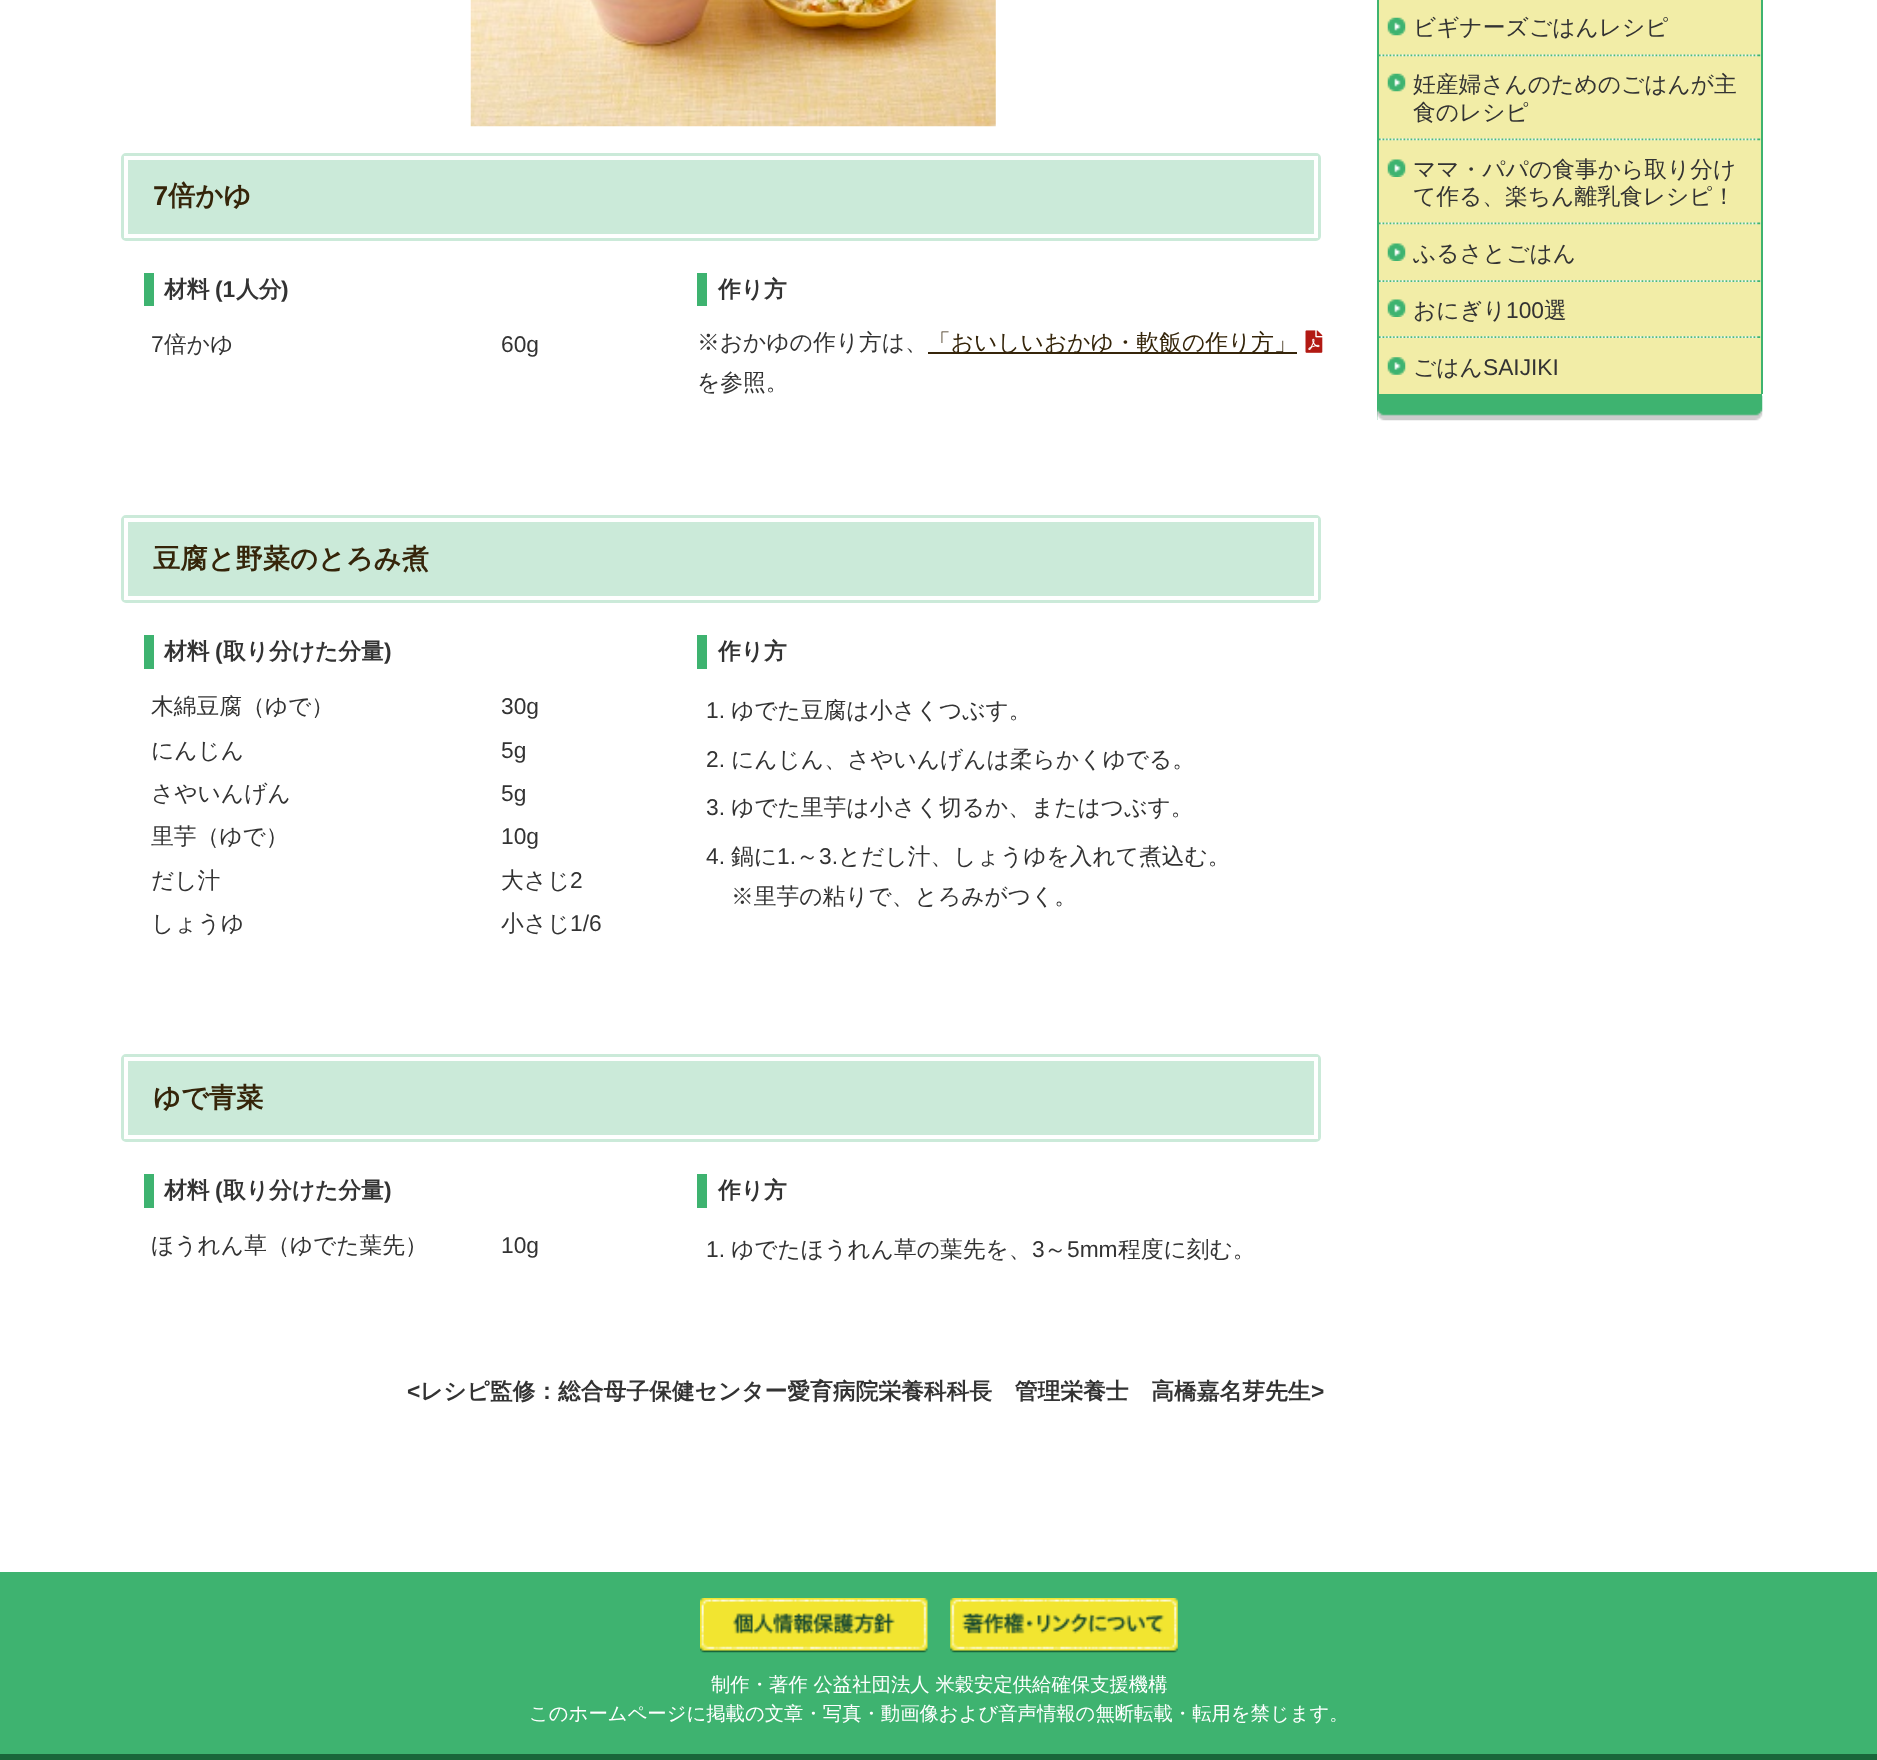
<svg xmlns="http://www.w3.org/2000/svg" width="1877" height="1760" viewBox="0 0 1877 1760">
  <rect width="100%" height="100%" fill="#ffffff"/>
  <image x="470" y="0" width="526" height="127" href="img1.png"/>
  <rect x="119" y="151" width="1204" height="92" rx="7" fill="#cbead9" stroke="#ffffff" stroke-width="4"/>
  <rect x="126" y="158" width="1190" height="78" fill="none" stroke="#ffffff" stroke-width="4"/>
  <text x="153" y="205" font-family="Liberation Sans" font-size="27.25" font-weight="bold" fill="#35250a">7</text>
  <text x="168" y="205" font-family="WenQuanYi Zen Hei" font-size="27.25" font-weight="bold" fill="#35250a">倍かゆ</text>
  <rect x="144" y="273" width="10" height="33" fill="#3eb370"/>
  <text x="164" y="297" font-family="WenQuanYi Zen Hei" font-size="22.75" font-weight="bold" fill="#333333">材料</text>
  <text x="215" y="297" font-family="Liberation Sans" font-size="22.75" font-weight="bold" fill="#333333">(1</text>
  <text x="236" y="297" font-family="WenQuanYi Zen Hei" font-size="22.75" font-weight="bold" fill="#333333">人分</text>
  <text x="281" y="297" font-family="Liberation Sans" font-size="22.75" font-weight="bold" fill="#333333">)</text>
  <text x="151" y="352" font-family="Liberation Sans" font-size="22.75" fill="#333333">7</text>
  <text x="164" y="352" font-family="WenQuanYi Zen Hei" font-size="22.75" font-weight="500" fill="#333333">倍かゆ</text>
  <text x="501" y="352" font-family="Liberation Sans" font-size="22.75" fill="#333333">60g</text>
  <rect x="697" y="273" width="10" height="33" fill="#3eb370"/>
  <text x="718" y="297" font-family="WenQuanYi Zen Hei" font-size="22.75" font-weight="bold" fill="#333333">作り方</text>
  <text x="697" y="350" font-family="WenQuanYi Zen Hei" font-size="22.75" font-weight="500" fill="#333333">※おかゆの作り方は、</text>
  <rect x="928" y="352" width="369" height="2" fill="#36250a"/>
  <text x="928" y="350" font-family="WenQuanYi Zen Hei" font-size="22.75" font-weight="500" fill="#35250a">「おいしいおかゆ・軟飯の作り方」</text>
  <image x="1305" y="330" width="18" height="23" href="img2.png"/>
  <text x="697" y="390" font-family="WenQuanYi Zen Hei" font-size="22.75" font-weight="500" fill="#333333">を参照。</text>
  <rect x="119" y="513" width="1204" height="92" rx="7" fill="#cbead9" stroke="#ffffff" stroke-width="4"/>
  <rect x="126" y="520" width="1190" height="78" fill="none" stroke="#ffffff" stroke-width="4"/>
  <text x="153" y="568" font-family="WenQuanYi Zen Hei" font-size="27.25" font-weight="bold" fill="#35250a">豆腐と野菜のとろみ煮</text>
  <rect x="144" y="635" width="10" height="34" fill="#3eb370"/>
  <text x="164" y="659" font-family="WenQuanYi Zen Hei" font-size="22.75" font-weight="bold" fill="#333333">材料</text>
  <text x="215" y="659" font-family="Liberation Sans" font-size="22.75" font-weight="bold" fill="#333333">(</text>
  <text x="223" y="659" font-family="WenQuanYi Zen Hei" font-size="22.75" font-weight="bold" fill="#333333">取り分けた分量</text>
  <text x="384" y="659" font-family="Liberation Sans" font-size="22.75" font-weight="bold" fill="#333333">)</text>
  <text x="151" y="714" font-family="WenQuanYi Zen Hei" font-size="22.75" font-weight="500" fill="#333333">木綿豆腐（ゆで）</text>
  <text x="501" y="714" font-family="Liberation Sans" font-size="22.75" fill="#333333">30g</text>
  <text x="151" y="758" font-family="WenQuanYi Zen Hei" font-size="22.75" font-weight="500" fill="#333333">にんじん</text>
  <text x="501" y="758" font-family="Liberation Sans" font-size="22.75" fill="#333333">5g</text>
  <text x="151" y="801" font-family="WenQuanYi Zen Hei" font-size="22.75" font-weight="500" fill="#333333">さやいんげん</text>
  <text x="501" y="801" font-family="Liberation Sans" font-size="22.75" fill="#333333">5g</text>
  <text x="151" y="844" font-family="WenQuanYi Zen Hei" font-size="22.75" font-weight="500" fill="#333333">里芋（ゆで）</text>
  <text x="501" y="844" font-family="Liberation Sans" font-size="22.75" fill="#333333">10g</text>
  <text x="151" y="888" font-family="WenQuanYi Zen Hei" font-size="22.75" font-weight="500" fill="#333333">だし汁</text>
  <text x="501" y="888" font-family="WenQuanYi Zen Hei" font-size="22.75" font-weight="500" fill="#333333">大さじ</text>
  <text x="570" y="888" font-family="Liberation Sans" font-size="22.75" fill="#333333">2</text>
  <text x="151" y="931" font-family="WenQuanYi Zen Hei" font-size="22.75" font-weight="500" fill="#333333">しょうゆ</text>
  <text x="501" y="931" font-family="WenQuanYi Zen Hei" font-size="22.75" font-weight="500" fill="#333333">小さじ</text>
  <text x="570" y="931" font-family="Liberation Sans" font-size="22.75" fill="#333333">1/6</text>
  <rect x="697" y="635" width="10" height="34" fill="#3eb370"/>
  <text x="718" y="659" font-family="WenQuanYi Zen Hei" font-size="22.75" font-weight="bold" fill="#333333">作り方</text>
  <text x="706" y="718" font-family="Liberation Sans" font-size="22.75" fill="#333333">1.</text>
  <text x="731" y="718" font-family="WenQuanYi Zen Hei" font-size="22.75" font-weight="500" fill="#333333">ゆでた豆腐は小さくつぶす。</text>
  <text x="706" y="767" font-family="Liberation Sans" font-size="22.75" fill="#333333">2.</text>
  <text x="731" y="767" font-family="WenQuanYi Zen Hei" font-size="22.75" font-weight="500" fill="#333333">にんじん、さやいんげんは柔らかくゆでる。</text>
  <text x="706" y="815" font-family="Liberation Sans" font-size="22.75" fill="#333333">3.</text>
  <text x="731" y="815" font-family="WenQuanYi Zen Hei" font-size="22.75" font-weight="500" fill="#333333">ゆでた里芋は小さく切るか、またはつぶす。</text>
  <text x="706" y="864" font-family="Liberation Sans" font-size="22.75" fill="#333333">4.</text>
  <text x="731" y="864" font-family="WenQuanYi Zen Hei" font-size="22.75" font-weight="500" fill="#333333">鍋に</text>
  <text x="777" y="864" font-family="Liberation Sans" font-size="22.75" fill="#333333">1.</text>
  <text x="796" y="864" font-family="WenQuanYi Zen Hei" font-size="22.75" font-weight="500" fill="#333333">～</text>
  <text x="819" y="864" font-family="Liberation Sans" font-size="22.75" fill="#333333">3.</text>
  <text x="838" y="864" font-family="WenQuanYi Zen Hei" font-size="22.75" font-weight="500" fill="#333333">とだし汁、しょうゆを入れて煮込む。</text>
  <text x="731" y="904" font-family="WenQuanYi Zen Hei" font-size="22.75" font-weight="500" fill="#333333">※里芋の粘りで、とろみがつく。</text>
  <rect x="119" y="1052" width="1204" height="92" rx="7" fill="#cbead9" stroke="#ffffff" stroke-width="4"/>
  <rect x="126" y="1059" width="1190" height="78" fill="none" stroke="#ffffff" stroke-width="4"/>
  <text x="153" y="1107" font-family="WenQuanYi Zen Hei" font-size="27.25" font-weight="bold" fill="#35250a">ゆで青菜</text>
  <rect x="144" y="1174" width="10" height="34" fill="#3eb370"/>
  <text x="164" y="1198" font-family="WenQuanYi Zen Hei" font-size="22.75" font-weight="bold" fill="#333333">材料</text>
  <text x="215" y="1198" font-family="Liberation Sans" font-size="22.75" font-weight="bold" fill="#333333">(</text>
  <text x="223" y="1198" font-family="WenQuanYi Zen Hei" font-size="22.75" font-weight="bold" fill="#333333">取り分けた分量</text>
  <text x="384" y="1198" font-family="Liberation Sans" font-size="22.75" font-weight="bold" fill="#333333">)</text>
  <text x="151" y="1253" font-family="WenQuanYi Zen Hei" font-size="22.75" font-weight="500" fill="#333333">ほうれん草（ゆでた葉先）</text>
  <text x="501" y="1253" font-family="Liberation Sans" font-size="22.75" fill="#333333">10g</text>
  <rect x="697" y="1174" width="10" height="34" fill="#3eb370"/>
  <text x="718" y="1198" font-family="WenQuanYi Zen Hei" font-size="22.75" font-weight="bold" fill="#333333">作り方</text>
  <text x="706" y="1257" font-family="Liberation Sans" font-size="22.75" fill="#333333">1.</text>
  <text x="731" y="1257" font-family="WenQuanYi Zen Hei" font-size="22.75" font-weight="500" fill="#333333">ゆでたほうれん草の葉先を、</text>
  <text x="1032" y="1257" font-family="Liberation Sans" font-size="22.75" fill="#333333">3</text>
  <text x="1044" y="1257" font-family="WenQuanYi Zen Hei" font-size="22.75" font-weight="500" fill="#333333">～</text>
  <text x="1067" y="1257" font-family="Liberation Sans" font-size="22.75" fill="#333333">5mm</text>
  <text x="1118" y="1257" font-family="WenQuanYi Zen Hei" font-size="22.75" font-weight="500" fill="#333333">程度に刻む。</text>
  <text x="407" y="1399" font-family="Liberation Sans" font-size="22.75" font-weight="bold" fill="#333333">&lt;</text>
  <text x="420" y="1399" font-family="WenQuanYi Zen Hei" font-size="22.75" font-weight="bold" fill="#333333">レシピ監修：総合母子保健センター愛育病院栄養科科長　管理栄養士　高橋嘉名芽先生</text>
  <text x="1311" y="1399" font-family="Liberation Sans" font-size="22.75" font-weight="bold" fill="#333333">&gt;</text>
  <rect x="1377" y="0" width="385" height="420" fill="#3eb370"/>
  <image x="1377" y="395" width="386" height="26" href="img3.png"/>
  <rect x="1762" y="0" width="1" height="394" fill="#3eb370"/>
  <rect x="1379" y="0" width="382" height="394" fill="#f2eda7"/>
  <image x="1387" y="17" width="19" height="19" href="img4.png"/>
  <text x="1413" y="35" font-family="WenQuanYi Zen Hei" font-size="22.75" font-weight="500" fill="#333333">ビギナーズごはんレシピ</text>
  <image x="1379" y="54" width="382" height="3" href="img5.png"/>
  <image x="1387" y="73" width="19" height="19" href="img4.png"/>
  <text x="1413" y="92" font-family="WenQuanYi Zen Hei" font-size="22.75" font-weight="500" fill="#333333">妊産婦さんのためのごはんが主</text>
  <text x="1413" y="120" font-family="WenQuanYi Zen Hei" font-size="22.75" font-weight="500" fill="#333333">食のレシピ</text>
  <image x="1379" y="138" width="382" height="3" href="img5.png"/>
  <image x="1387" y="159" width="19" height="18" href="img6.png"/>
  <text x="1413" y="177" font-family="WenQuanYi Zen Hei" font-size="22.75" font-weight="500" fill="#333333">ママ・パパの食事から取り分け</text>
  <text x="1413" y="204" font-family="WenQuanYi Zen Hei" font-size="22.75" font-weight="500" fill="#333333">て作る、楽ちん離乳食レシピ！</text>
  <image x="1379" y="222" width="382" height="3" href="img5.png"/>
  <image x="1387" y="243" width="19" height="18" href="img6.png"/>
  <text x="1413" y="261" font-family="WenQuanYi Zen Hei" font-size="22.75" font-weight="500" fill="#333333">ふるさとごはん</text>
  <image x="1379" y="280" width="382" height="2" href="img7.png"/>
  <image x="1387" y="299" width="19" height="18" href="img6.png"/>
  <text x="1413" y="318" font-family="WenQuanYi Zen Hei" font-size="22.75" font-weight="500" fill="#333333">おにぎり</text>
  <text x="1506" y="318" font-family="Liberation Sans" font-size="22.75" fill="#333333">100</text>
  <text x="1544" y="318" font-family="WenQuanYi Zen Hei" font-size="22.75" font-weight="500" fill="#333333">選</text>
  <image x="1379" y="336" width="382" height="2" href="img7.png"/>
  <image x="1387" y="357" width="19" height="18" href="img8.png"/>
  <text x="1413" y="375" font-family="WenQuanYi Zen Hei" font-size="22.75" font-weight="500" fill="#333333">ごはん</text>
  <text x="1483" y="375" font-family="Liberation Sans" font-size="22.75" fill="#333333">SAIJIKI</text>
  <rect x="0" y="1572" width="1877" height="182" fill="#3eb370"/>
  <rect x="0" y="1754" width="1877" height="6" fill="#19663a"/>
  <image x="700" y="1598" width="228" height="55" href="img9.png"/>
  <image x="950" y="1598" width="228" height="55" href="img10.png"/>
  <text x="711" y="1691" font-family="WenQuanYi Zen Hei" font-size="19.35" font-weight="500" fill="#ffffff">制作・著作 公益社団法人 米穀安定供給確保支援機構</text>
  <text x="529" y="1720" font-family="WenQuanYi Zen Hei" font-size="19.35" font-weight="500" fill="#ffffff">このホームページに掲載の文章・写真・動画像および音声情報の無断転載・転用を禁じます。</text>
</svg>
